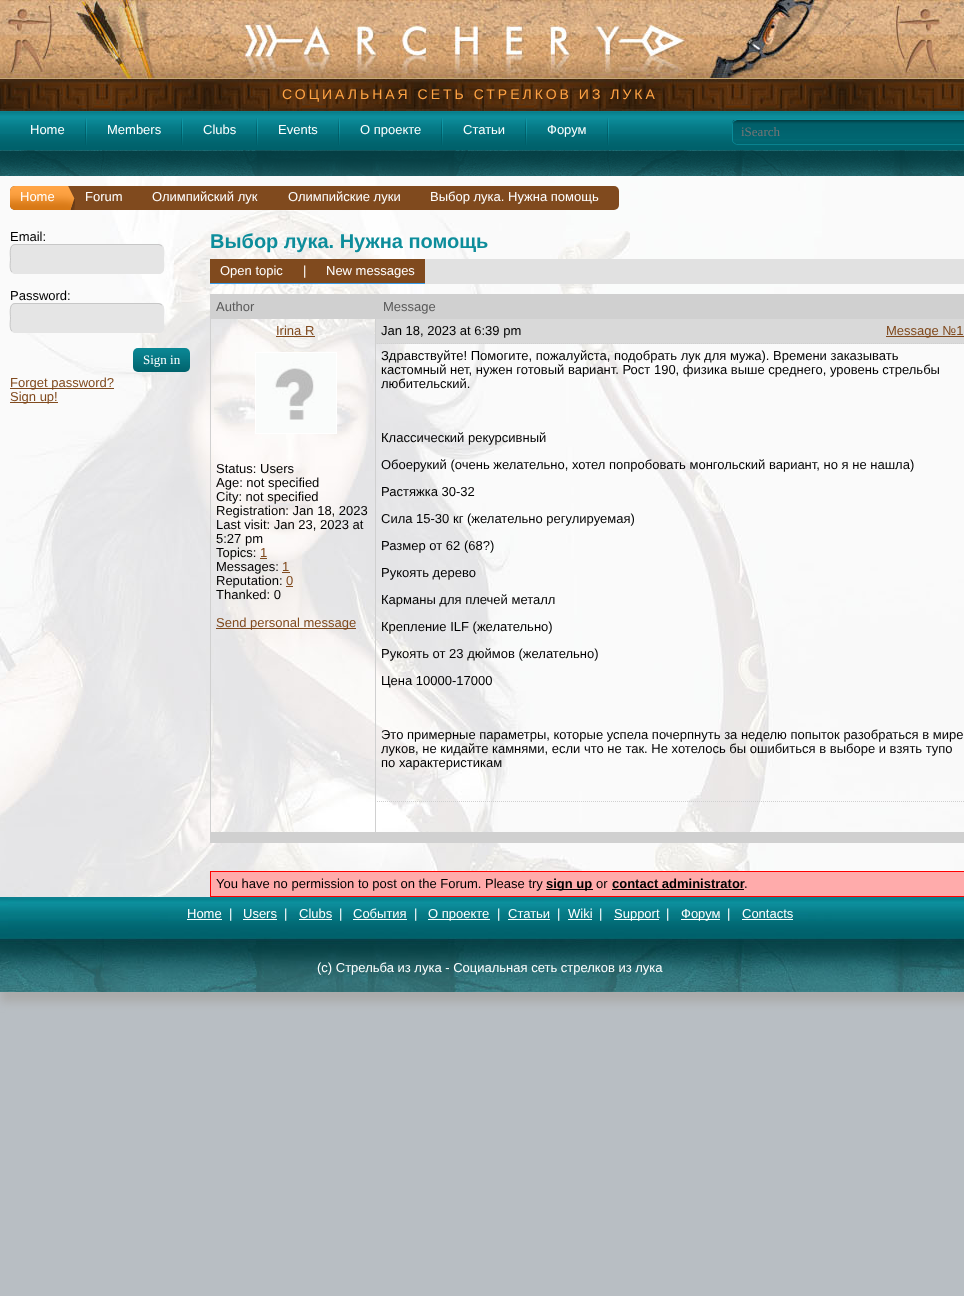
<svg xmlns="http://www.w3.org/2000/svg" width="964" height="1296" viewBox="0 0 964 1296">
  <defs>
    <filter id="blur1" x="-50%" y="-200%" width="200%" height="500%"><feGaussianBlur stdDeviation="5"/></filter>
  </defs>
  <rect width="100%" height="100%" fill="#b8bec3"/>
  <image x="0" y="0" width="964" height="111" href="img1.png"/>
  <text x="282" y="99" font-family="Liberation Sans" font-size="14" letter-spacing="3" fill="#ffa445">СОЦИАЛЬНАЯ СЕТЬ СТРЕЛКОВ ИЗ ЛУКА</text>
  <rect x="0" y="121" width="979" height="881" fill="#aaaaaa" filter="url(#blur1)"/>
  <image x="0" y="176" width="964" height="721" href="img2.png"/>
  <image x="0" y="111" width="964" height="39" href="img3.png"/>
  <image x="85" y="118" width="2" height="27" href="img4.png"/>
  <text x="30" y="134" font-family="Liberation Sans" font-size="13" fill="#ffffff">Home</text>
  <image x="181" y="118" width="2" height="27" href="img4.png"/>
  <text x="107" y="134" font-family="Liberation Sans" font-size="13" fill="#ffffff">Members</text>
  <image x="256" y="118" width="2" height="27" href="img4.png"/>
  <text x="203" y="134" font-family="Liberation Sans" font-size="13" fill="#ffffff">Clubs</text>
  <image x="338" y="118" width="2" height="27" href="img4.png"/>
  <text x="278" y="134" font-family="Liberation Sans" font-size="13" fill="#ffffff">Events</text>
  <image x="441" y="118" width="2" height="27" href="img4.png"/>
  <text x="360" y="134" font-family="Liberation Sans" font-size="13" fill="#ffffff">О проекте</text>
  <image x="525" y="118" width="2" height="27" href="img4.png"/>
  <text x="463" y="134" font-family="Liberation Sans" font-size="13" fill="#ffffff">Статьи</text>
  <image x="607" y="118" width="2" height="27" href="img4.png"/>
  <text x="547" y="134" font-family="Liberation Sans" font-size="13" fill="#ffffff">Форум</text>
  <image x="732" y="120" width="232" height="19" href="img5.png"/>
  <path d="M734 121L737 119.5H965.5L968 121" fill="none" stroke="#0a94a2"/>
  <path d="M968 143L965 144.5H736.5L734 143" fill="none" stroke="#098390"/>
  <path d="M734 143C733 142.5 732.5 141 732.5 140V124C732.5 123 733 121.5 734 121" fill="none" stroke="#098c9a"/>
  <text x="741" y="136" font-family="Liberation Serif" font-size="13" fill="#757575">iSearch</text>
  <image x="0" y="150" width="964" height="26" href="img6.png"/>
  <rect x="10" y="186" width="609" height="24" rx="5" fill="#804a1e"/>
  <image x="10" y="186" width="65" height="24" href="img7.png"/>
  <text x="20" y="201" font-family="Liberation Sans" font-size="13" fill="#ffffff">Home</text>
  <text x="85" y="201" font-family="Liberation Sans" font-size="13" fill="#ffffff">Forum</text>
  <text x="152" y="201" font-family="Liberation Sans" font-size="13" fill="#ffffff">Олимпийский лук</text>
  <text x="288" y="201" font-family="Liberation Sans" font-size="13" fill="#ffffff">Олимпийские луки</text>
  <text x="430" y="201" font-family="Liberation Sans" font-size="13" fill="#ffffff">Выбор лука. Нужна помощь</text>
  <text x="10" y="241" font-family="Liberation Sans" font-size="13" fill="#000000">Email:</text>
  <rect x="10" y="244" width="154" height="30" rx="5" fill="#e5e5e5"/>
  <path d="M162 246C165 248.5 163.5 256 163.5 259C163.5 262.5 165.5 273.5 159 273.5H15L12 272" fill="none" stroke="#e5e5e5"/>
  <path d="M12 272C9 269.5 10.5 262 10.5 259C10.5 255.5 8.5 244.5 15 244.5H159L162 246" fill="none" stroke="#c7c7c7"/>
  <text x="10" y="300" font-family="Liberation Sans" font-size="13" fill="#000000">Password:</text>
  <rect x="10" y="303" width="154" height="30" rx="5" fill="#e5e5e5"/>
  <path d="M162 305C165 307.5 163.5 315 163.5 318C163.5 321.5 165.5 332.5 159 332.5H15L12 331" fill="none" stroke="#e5e5e5"/>
  <path d="M12 331C9 328.5 10.5 321 10.5 318C10.5 314.5 8.5 303.5 15 303.5H159L162 305" fill="none" stroke="#c7c7c7"/>
  <image x="133" y="348" width="57" height="24" href="img8.png"/>
  <text x="143" y="364" font-family="Liberation Serif" font-size="13" fill="#ffffff">Sign in</text>
  <rect x="10" y="388" width="104" height="1" fill="#804a1e"/>
  <text x="10" y="387" font-family="Liberation Sans" font-size="13" fill="#804a1e">Forget password?</text>
  <rect x="10" y="402" width="48" height="1" fill="#804a1e"/>
  <text x="10" y="401" font-family="Liberation Sans" font-size="13" fill="#804a1e">Sign up!</text>
  <text x="210" y="248" font-family="Liberation Sans" font-size="20" font-weight="bold" fill="#0d8d9b">Выбор лука. Нужна помощь</text>
  <rect x="425" y="259" width="539" height="25" fill="#e1e1e1"/>
  <rect x="210" y="259" width="215" height="24" fill="#804a1e"/>
  <rect x="210" y="283" width="215" height="1" fill="#379cea"/>
  <text x="220" y="275" font-family="Liberation Sans" font-size="13" fill="#ffffff">Open topic</text>
  <text x="303" y="275" font-family="Liberation Sans" font-size="13" fill="#ffffff">|</text>
  <text x="326" y="275" font-family="Liberation Sans" font-size="13" fill="#ffffff">New messages</text>
  <rect x="210" y="842" width="754" height="1" fill="#d0d0d0"/>
  <rect x="210" y="294" width="1" height="549" fill="#d0d0d0"/>
  <rect x="211" y="295" width="166" height="24" fill="#d0d0d0"/>
  <rect x="210" y="294" width="754" height="1" fill="#d0d0d0"/>
  <rect x="377" y="294" width="1" height="26" fill="#d0d0d0"/>
  <text x="216" y="311" font-family="Liberation Sans" font-size="13" fill="#5a5a5a">Author</text>
  <rect x="378" y="295" width="586" height="24" fill="#d0d0d0"/>
  <text x="383" y="311" font-family="Liberation Sans" font-size="13" fill="#5a5a5a">Message</text>
  <text x="276" y="335" font-family="Liberation Sans" font-size="13" fill="#804a1e">Irina R</text>
  <rect x="276" y="336" width="39" height="1" fill="#804a1e"/>
  <rect x="255.5" y="352.5" width="81" height="81" fill="none" stroke="#ffffff"/>
  <image x="256" y="353" width="80" height="80" href="img9.png"/>
  <text x="216" y="473" font-family="Liberation Sans" font-size="13" fill="#000000">Status: Users</text>
  <text x="216" y="487" font-family="Liberation Sans" font-size="13" fill="#000000">Age: not specified</text>
  <text x="216" y="501" font-family="Liberation Sans" font-size="13" fill="#000000">City: not specified</text>
  <text x="216" y="515" font-family="Liberation Sans" font-size="13" fill="#000000">Registration: Jan 18, 2023</text>
  <text x="216" y="529" font-family="Liberation Sans" font-size="13" fill="#000000">Last visit: Jan 23, 2023 at</text>
  <text x="216" y="543" font-family="Liberation Sans" font-size="13" fill="#000000">5:27 pm</text>
  <text x="216" y="557" font-family="Liberation Sans" font-size="13" fill="#000000">Topics:</text>
  <text x="260" y="557" font-family="Liberation Sans" font-size="13" fill="#804a1e">1</text>
  <rect x="260" y="558" width="7" height="1" fill="#804a1e"/>
  <text x="216" y="571" font-family="Liberation Sans" font-size="13" fill="#000000">Messages:</text>
  <text x="282" y="571" font-family="Liberation Sans" font-size="13" fill="#804a1e">1</text>
  <rect x="282" y="572" width="8" height="1" fill="#804a1e"/>
  <text x="216" y="585" font-family="Liberation Sans" font-size="13" fill="#000000">Reputation:</text>
  <text x="286" y="585" font-family="Liberation Sans" font-size="13" fill="#804a1e">0</text>
  <rect x="286" y="586" width="7" height="1" fill="#804a1e"/>
  <text x="216" y="599" font-family="Liberation Sans" font-size="13" fill="#000000">Thanked: 0</text>
  <rect x="216" y="628" width="140" height="1" fill="#804a1e"/>
  <text x="216" y="627" font-family="Liberation Sans" font-size="13" fill="#804a1e">Send personal message</text>
  <rect x="376" y="319" width="588" height="25" fill="#d9d9d9"/>
  <path d="M375 343.5H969" fill="none" stroke="#d0d0d0" stroke-dasharray="1 1"/>
  <rect x="375" y="319" width="1" height="482" fill="#d0d0d0"/>
  <text x="381" y="335" font-family="Liberation Sans" font-size="13" fill="#000000">Jan 18, 2023 at 6:39 pm</text>
  <rect x="886" y="336" width="78" height="1" fill="#804a1e"/>
  <text x="886" y="335" font-family="Liberation Sans" font-size="13" fill="#804a1e">Message №1</text>
  <text x="381" y="360" font-family="Liberation Sans" font-size="13" fill="#000000">Здравствуйте! Помогите, пожалуйста, подобрать лук для мужа). Времени заказывать</text>
  <text x="381" y="374" font-family="Liberation Sans" font-size="13" fill="#000000">кастомный нет, нужен готовый вариант. Рост 190, физика выше среднего, уровень стрельбы</text>
  <text x="381" y="388" font-family="Liberation Sans" font-size="13" fill="#000000">любительский.</text>
  <text x="381" y="442" font-family="Liberation Sans" font-size="13" fill="#000000">Классический рекурсивный</text>
  <text x="381" y="469" font-family="Liberation Sans" font-size="13" fill="#000000">Обоерукий (очень желательно, хотел попробовать монгольский вариант, но я не нашла)</text>
  <text x="381" y="496" font-family="Liberation Sans" font-size="13" fill="#000000">Растяжка 30-32</text>
  <text x="381" y="523" font-family="Liberation Sans" font-size="13" fill="#000000">Сила 15-30 кг (желательно регулируемая)</text>
  <text x="381" y="550" font-family="Liberation Sans" font-size="13" fill="#000000">Размер от 62 (68?)</text>
  <text x="381" y="577" font-family="Liberation Sans" font-size="13" fill="#000000">Рукоять дерево</text>
  <text x="381" y="604" font-family="Liberation Sans" font-size="13" fill="#000000">Карманы для плечей металл</text>
  <text x="381" y="631" font-family="Liberation Sans" font-size="13" fill="#000000">Крепление ILF (желательно)</text>
  <text x="381" y="658" font-family="Liberation Sans" font-size="13" fill="#000000">Рукоять от 23 дюймов (желательно)</text>
  <text x="381" y="685" font-family="Liberation Sans" font-size="13" fill="#000000">Цена 10000-17000</text>
  <text x="381" y="739" font-family="Liberation Sans" font-size="13" fill="#000000">Это примерные параметры, которые успела почерпнуть за неделю попыток разобраться в мире</text>
  <text x="381" y="753" font-family="Liberation Sans" font-size="13" fill="#000000">луков, не кидайте камнями, если что не так. Не хотелось бы ошибиться в выборе и взять тупо</text>
  <text x="381" y="767" font-family="Liberation Sans" font-size="13" fill="#000000">по характеристикам</text>
  <path d="M375 801.5H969" fill="none" stroke="#d0d0d0" stroke-dasharray="1 1"/>
  <rect x="375" y="801" width="1" height="31" fill="#d0d0d0"/>
  <rect x="211" y="832" width="753" height="10" fill="#d0d0d0"/>
  <rect x="210.5" y="871.5" width="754" height="25" fill="#ffabab" stroke="#ff0000"/>
  <text x="216" y="888" font-family="Liberation Sans" font-size="13" fill="#000000">You have no permission to post on the Forum. Please try</text>
  <rect x="546" y="889" width="47" height="1" fill="#000000"/>
  <text x="546" y="888" font-family="Liberation Sans" font-size="13" font-weight="bold" fill="#000000">sign up</text>
  <text x="596" y="888" font-family="Liberation Sans" font-size="13" fill="#000000">or</text>
  <text x="612" y="888" font-family="Liberation Sans" font-size="13" font-weight="bold" fill="#000000">contact administrator</text>
  <rect x="612" y="889" width="132" height="1" fill="#000000"/>
  <text x="744" y="888" font-family="Liberation Sans" font-size="13" fill="#000000">.</text>
  <image x="0" y="897" width="964" height="95" href="img10.png"/>
  <text x="187" y="918" font-family="Liberation Sans" font-size="13" fill="#ffffff">Home</text>
  <rect x="187" y="919" width="35" height="1" fill="#ffffff"/>
  <text x="229" y="918" font-family="Liberation Sans" font-size="13" fill="#ffffff">|</text>
  <text x="243" y="918" font-family="Liberation Sans" font-size="13" fill="#ffffff">Users</text>
  <rect x="243" y="919" width="34" height="1" fill="#ffffff"/>
  <text x="284" y="918" font-family="Liberation Sans" font-size="13" fill="#ffffff">|</text>
  <text x="299" y="918" font-family="Liberation Sans" font-size="13" fill="#ffffff">Clubs</text>
  <rect x="299" y="919" width="33" height="1" fill="#ffffff"/>
  <text x="339" y="918" font-family="Liberation Sans" font-size="13" fill="#ffffff">|</text>
  <text x="353" y="918" font-family="Liberation Sans" font-size="13" fill="#ffffff">События</text>
  <rect x="353" y="919" width="54" height="1" fill="#ffffff"/>
  <text x="414" y="918" font-family="Liberation Sans" font-size="13" fill="#ffffff">|</text>
  <rect x="428" y="919" width="62" height="1" fill="#ffffff"/>
  <text x="428" y="918" font-family="Liberation Sans" font-size="13" fill="#ffffff">О проекте</text>
  <text x="497" y="918" font-family="Liberation Sans" font-size="13" fill="#ffffff">|</text>
  <text x="508" y="918" font-family="Liberation Sans" font-size="13" fill="#ffffff">Статьи</text>
  <rect x="508" y="919" width="42" height="1" fill="#ffffff"/>
  <text x="557" y="918" font-family="Liberation Sans" font-size="13" fill="#ffffff">|</text>
  <text x="568" y="918" font-family="Liberation Sans" font-size="13" fill="#ffffff">Wiki</text>
  <rect x="568" y="919" width="24" height="1" fill="#ffffff"/>
  <text x="599" y="918" font-family="Liberation Sans" font-size="13" fill="#ffffff">|</text>
  <rect x="614" y="919" width="45" height="1" fill="#ffffff"/>
  <text x="614" y="918" font-family="Liberation Sans" font-size="13" fill="#ffffff">Support</text>
  <text x="666" y="918" font-family="Liberation Sans" font-size="13" fill="#ffffff">|</text>
  <rect x="681" y="919" width="39" height="1" fill="#ffffff"/>
  <text x="681" y="918" font-family="Liberation Sans" font-size="13" fill="#ffffff">Форум</text>
  <text x="727" y="918" font-family="Liberation Sans" font-size="13" fill="#ffffff">|</text>
  <text x="742" y="918" font-family="Liberation Sans" font-size="13" fill="#ffffff">Contacts</text>
  <rect x="742" y="919" width="51" height="1" fill="#ffffff"/>
  <text x="317" y="972" font-family="Liberation Sans" font-size="13" fill="#ffffff">(c) Стрельба из лука - Социальная сеть стрелков из лука</text>
</svg>
